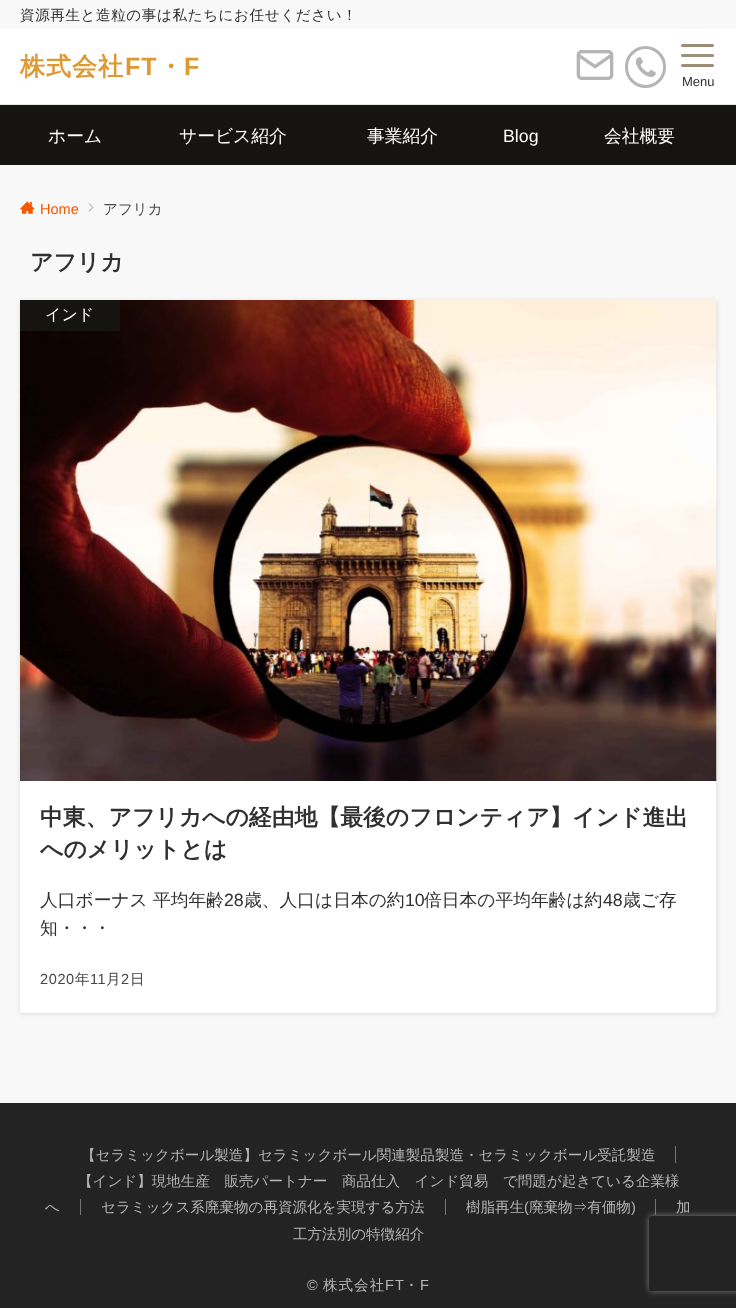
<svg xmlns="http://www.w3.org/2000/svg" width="736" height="1308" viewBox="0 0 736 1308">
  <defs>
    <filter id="blur1" x="-50%" y="-200%" width="200%" height="500%"><feGaussianBlur stdDeviation="2"/></filter>
    <clipPath id="clip1"><path d="M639 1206H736V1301H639ZM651.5 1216H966.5C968 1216 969 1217 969 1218.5V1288.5C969 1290 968 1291 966.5 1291H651.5C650 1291 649 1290 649 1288.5V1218.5C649 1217 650 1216 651.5 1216Z" clip-rule="evenodd"/></clipPath>
    <filter id="blur2" x="-50%" y="-200%" width="200%" height="500%"><feGaussianBlur stdDeviation="3"/></filter>
  </defs>
  <rect width="100%" height="100%" fill="#f8f8f8"/>
  <text x="20" y="20" font-family="WenQuanYi Zen Hei" font-size="14.55" font-weight="500" letter-spacing="0.6" fill="#303030">資源再生と造粒の事は私たちにお任せください！</text>
  <rect x="0" y="29" width="736" height="75" fill="#ffffff"/>
  <rect x="0" y="104" width="736" height="1" fill="#e6e6e6"/>
  <text x="20" y="75" font-family="WenQuanYi Zen Hei" font-size="25" font-weight="bold" letter-spacing="1" fill="#dd9933">株式会社</text>
  <text x="125" y="75" font-family="Liberation Sans" font-size="25" font-weight="bold" letter-spacing="1" fill="#dd9933">FT</text>
  <text x="158" y="75" font-family="WenQuanYi Zen Hei" font-size="25" font-weight="bold" letter-spacing="1" fill="#dd9933">・</text>
  <text x="184" y="75" font-family="Liberation Sans" font-size="25" font-weight="bold" letter-spacing="1" fill="#dd9933">F</text>
  <image x="576" y="50" width="38" height="30" href="img1.png"/>
  <rect x="626.5" y="47.5" width="38" height="39" rx="19" fill="none" stroke="#b5b5b5" stroke-width="3"/>
  <image x="635" y="57" width="21" height="20" href="img2.png"/>
  <rect x="681" y="44" width="33" height="3" rx="1.5" fill="#9b8d77"/>
  <rect x="681" y="54" width="33" height="3" rx="1.5" fill="#9b8d77"/>
  <rect x="681" y="64" width="33" height="3" rx="1.5" fill="#9b8d77"/>
  <text x="682" y="86" font-family="Liberation Sans" font-size="13" fill="#303030">Menu</text>
  <rect x="0" y="105" width="736" height="60" fill="#161410"/>
  <text x="48" y="142" font-family="WenQuanYi Zen Hei" font-size="17.75" font-weight="500" fill="#ffffff">ホーム</text>
  <text x="179" y="142" font-family="WenQuanYi Zen Hei" font-size="17.75" font-weight="500" fill="#ffffff">サービス紹介</text>
  <text x="367" y="142" font-family="WenQuanYi Zen Hei" font-size="17.75" font-weight="500" fill="#ffffff">事業紹介</text>
  <text x="503" y="142" font-family="Liberation Sans" font-size="17.75" fill="#ffffff">Blog</text>
  <text x="604" y="142" font-family="WenQuanYi Zen Hei" font-size="17.75" font-weight="500" fill="#ffffff">会社概要</text>
  <image x="20" y="201" width="15" height="13" href="img3.png"/>
  <text x="40" y="214" font-family="Liberation Sans" font-size="14.55" fill="#f25800">Home</text>
  <image x="88" y="203" width="6" height="9" href="img4.png"/>
  <text x="103" y="214" font-family="WenQuanYi Zen Hei" font-size="14.55" font-weight="500" fill="#484848">アフリカ</text>
  <text x="30" y="270" font-family="WenQuanYi Zen Hei" font-size="22.85" font-weight="bold" fill="#303030">アフリカ</text>
  <rect x="19" y="300" width="699" height="715" rx="5" fill="#000000" fill-opacity="0.08" filter="url(#blur1)"/>
  <rect x="20" y="300" width="696" height="713" rx="4" fill="#ffffff"/>
  <image x="20" y="300" width="697" height="481" href="img5.png"/>
  <rect x="20" y="300" width="100" height="31" fill="#161410"/>
  <text x="45" y="320" font-family="WenQuanYi Zen Hei" font-size="16" font-weight="500" fill="#ffffff">インド</text>
  <text x="40" y="825" font-family="WenQuanYi Zen Hei" font-size="22.85" font-weight="bold" fill="#303030">中東、アフリカへの経由地【最後のフロンティア】インド進出</text>
  <text x="40" y="857" font-family="WenQuanYi Zen Hei" font-size="22.85" font-weight="bold" fill="#303030">へのメリットとは</text>
  <text x="40" y="906" font-family="WenQuanYi Zen Hei" font-size="17.75" font-weight="500" fill="#303030">人口ボーナス 平均年齢</text>
  <text x="224" y="906" font-family="Liberation Sans" font-size="17.75" fill="#303030">28</text>
  <text x="244" y="906" font-family="WenQuanYi Zen Hei" font-size="17.75" font-weight="500" fill="#303030">歳、人口は日本の約</text>
  <text x="405" y="906" font-family="Liberation Sans" font-size="17.75" fill="#303030">10</text>
  <text x="424" y="906" font-family="WenQuanYi Zen Hei" font-size="17.75" font-weight="500" fill="#303030">倍日本の平均年齢は約</text>
  <text x="603" y="906" font-family="Liberation Sans" font-size="17.75" fill="#303030">48</text>
  <text x="623" y="906" font-family="WenQuanYi Zen Hei" font-size="17.75" font-weight="500" fill="#303030">歳ご存</text>
  <text x="40" y="934" font-family="WenQuanYi Zen Hei" font-size="17.75" font-weight="500" fill="#303030">知・・・</text>
  <text x="40" y="984" font-family="Liberation Sans" font-size="14.55" letter-spacing="0.6" fill="#484848">2020</text>
  <text x="75" y="984" font-family="WenQuanYi Zen Hei" font-size="14.55" font-weight="500" letter-spacing="0.6" fill="#484848">年</text>
  <text x="90" y="984" font-family="Liberation Sans" font-size="14.55" letter-spacing="0.6" fill="#484848">11</text>
  <text x="106" y="984" font-family="WenQuanYi Zen Hei" font-size="14.55" font-weight="500" letter-spacing="0.6" fill="#484848">月</text>
  <text x="121" y="984" font-family="Liberation Sans" font-size="14.55" letter-spacing="0.6" fill="#484848">2</text>
  <text x="130" y="984" font-family="WenQuanYi Zen Hei" font-size="14.55" font-weight="500" letter-spacing="0.6" fill="#484848">日</text>
  <rect x="0" y="1103" width="736" height="205" fill="#232323"/>
  <text x="81" y="1160" font-family="WenQuanYi Zen Hei" font-size="14.55" font-weight="500" fill="#b5b5b5">【セラミックボール製造】セラミックボール関連製品製造・セラミックボール受託製造</text>
  <rect x="675" y="1146" width="1" height="17" fill="#757575"/>
  <text x="78" y="1186" font-family="WenQuanYi Zen Hei" font-size="14.55" font-weight="500" fill="#b5b5b5">【インド】現地生産　販売パートナー　商品仕入　インド貿易　で問題が起きている企業様</text>
  <text x="45" y="1212" font-family="WenQuanYi Zen Hei" font-size="14.55" font-weight="500" fill="#b5b5b5">へ</text>
  <rect x="80" y="1199" width="1" height="16" fill="#757575"/>
  <text x="101" y="1212" font-family="WenQuanYi Zen Hei" font-size="14.55" font-weight="500" fill="#b5b5b5">セラミックス系廃棄物の再資源化を実現する方法</text>
  <rect x="445" y="1199" width="1" height="16" fill="#757575"/>
  <text x="466" y="1212" font-family="WenQuanYi Zen Hei" font-size="14.55" font-weight="500" fill="#b5b5b5">樹脂再生</text>
  <text x="524" y="1212" font-family="Liberation Sans" font-size="14.55" fill="#b5b5b5">(</text>
  <text x="529" y="1212" font-family="WenQuanYi Zen Hei" font-size="14.55" font-weight="500" fill="#b5b5b5">廃棄物⇒有価物</text>
  <text x="631" y="1212" font-family="Liberation Sans" font-size="14.55" fill="#b5b5b5">)</text>
  <rect x="655" y="1199" width="1" height="16" fill="#757575"/>
  <text x="676" y="1212" font-family="WenQuanYi Zen Hei" font-size="14.55" font-weight="500" fill="#b5b5b5">加</text>
  <text x="293" y="1239" font-family="WenQuanYi Zen Hei" font-size="14.55" font-weight="500" fill="#b5b5b5">工方法別の特徴紹介</text>
  <text x="307" y="1290" font-family="Liberation Sans" font-size="14.55" letter-spacing="1" fill="#b5b5b5">©</text>
  <text x="323" y="1290" font-family="WenQuanYi Zen Hei" font-size="14.55" font-weight="500" letter-spacing="1" fill="#b5b5b5">株式会社</text>
  <text x="385" y="1290" font-family="Liberation Sans" font-size="14.55" letter-spacing="1" fill="#b5b5b5">FT</text>
  <text x="404" y="1290" font-family="WenQuanYi Zen Hei" font-size="14.55" font-weight="500" letter-spacing="1" fill="#b5b5b5">・</text>
  <text x="420" y="1290" font-family="Liberation Sans" font-size="14.55" letter-spacing="1" fill="#b5b5b5">F</text>
  <g clip-path="url(#clip1)">
    <rect x="649" y="1216" width="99" height="75" rx="2.5" fill="#808080" filter="url(#blur2)"/>
  </g>
</svg>
